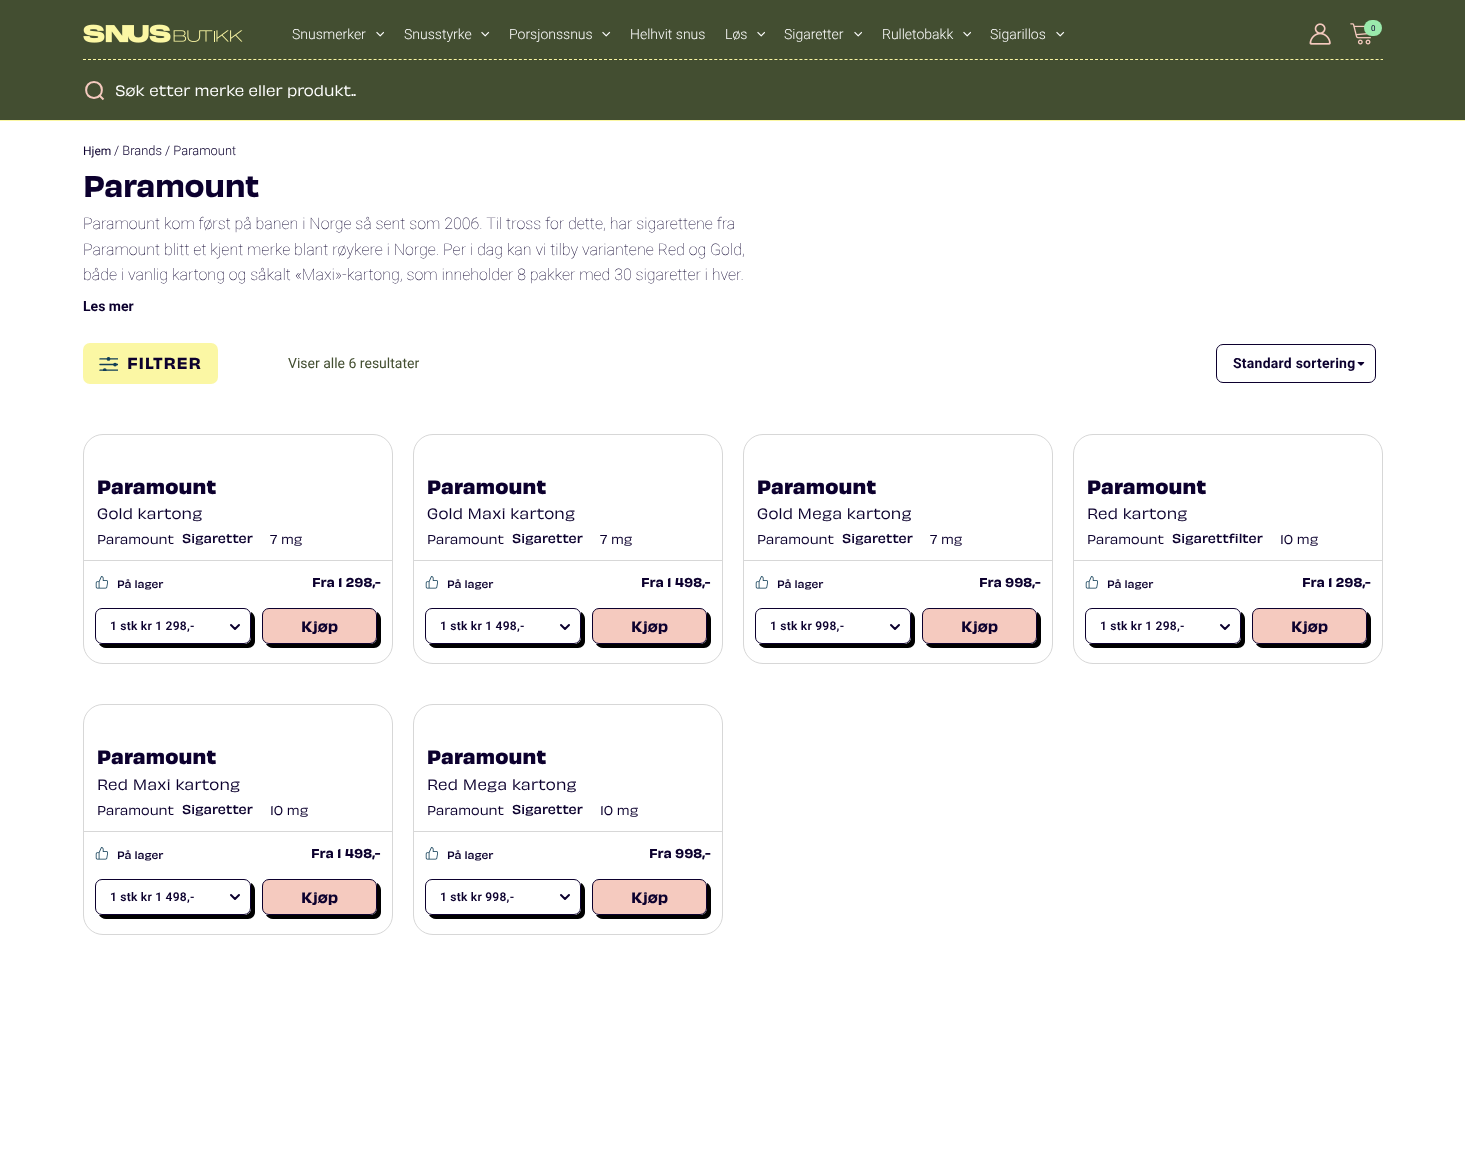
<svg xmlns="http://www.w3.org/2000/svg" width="1465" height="1166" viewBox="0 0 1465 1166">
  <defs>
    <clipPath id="clip1"><rect x="83" y="79" width="24" height="24" rx="12"/></clipPath>
  </defs>
  <rect width="100%" height="100%" fill="#ffffff"/>
  <rect x="0" y="0" width="1465" height="120" fill="#434e31"/>
  <path d="M83 59.5H1383" fill="none" stroke="#fbf7a4" stroke-dasharray="3 2.01"/>
  <image x="83" y="24" width="160" height="19" href="img1.png"/>
  <text x="292" y="39" font-family="Roboto" font-size="14" font-weight="300" fill="#ffffff">Snusmerker</text>
  <image x="376" y="31" width="8" height="6" href="img2.png"/>
  <text x="404" y="39" font-family="Roboto" font-size="14" font-weight="300" fill="#ffffff">Snusstyrke</text>
  <image x="481" y="31" width="9" height="6" href="img3.png"/>
  <text x="509" y="39" font-family="Roboto" font-size="14" font-weight="300" fill="#ffffff">Porsjonssnus</text>
  <image x="602" y="31" width="9" height="6" href="img3.png"/>
  <text x="630" y="39" font-family="Roboto" font-size="14" font-weight="300" fill="#ffffff">Helhvit snus</text>
  <text x="725" y="39" font-family="Roboto" font-size="14" font-weight="300" fill="#ffffff">Løs</text>
  <image x="757" y="31" width="8" height="6" href="img2.png"/>
  <text x="784" y="39" font-family="Roboto" font-size="14" font-weight="300" fill="#ffffff">Sigaretter</text>
  <image x="854" y="31" width="8" height="6" href="img2.png"/>
  <text x="882" y="39" font-family="Roboto" font-size="14" font-weight="300" fill="#ffffff">Rulletobakk</text>
  <image x="963" y="31" width="8" height="6" href="img2.png"/>
  <text x="990" y="39" font-family="Roboto" font-size="14" font-weight="300" fill="#ffffff">Sigarillos</text>
  <image x="1056" y="31" width="9" height="6" href="img3.png"/>
  <image x="1309" y="23" width="22" height="22" href="img4.png"/>
  <image x="1350" y="23" width="21" height="22" href="img5.png"/>
  <rect x="1364" y="20" width="18" height="16" rx="8" fill="#9aeaac"/>
  <text x="1371" y="31" font-family="Roboto" font-size="8" fill="#0c002e">0</text>
  <rect x="0" y="120" width="1465" height="1" fill="#fbf7a4"/>
  <path d="M94 98C104.5 98 104.5 82 94 82C83.5 82 83.5 98 94 98Z" fill="none" stroke="#f5cabf" stroke-width="2" stroke-linecap="round" stroke-linejoin="round"/>
  <g clip-path="url(#clip1)">
    <path d="M104 100L99.5 95.5" fill="none" stroke="#f5cabf" stroke-width="2" stroke-linecap="round" stroke-linejoin="round"/>
  </g>
  <text x="115" y="96" font-family="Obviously" font-size="14" font-weight="600" fill="#ffffff">Søk etter merke eller produkt..</text>
  <text x="83" y="155" font-family="Roboto" font-size="12" fill="#0c002e">Hjem</text>
  <text x="114" y="155" font-family="Roboto" font-size="12.9" font-weight="300" fill="#0c002e">/ Brands / Paramount</text>
  <text x="83" y="197" font-family="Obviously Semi" font-size="28" font-weight="600" letter-spacing="-0.5" fill="#0c002e">Paramount</text>
  <text x="83" y="229" font-family="Roboto" font-size="16" font-weight="200" fill="#0c002e">Paramount kom først på banen i Norge så sent som 2006. Til tross for dette, har sigarettene fra</text>
  <text x="83" y="255" font-family="Roboto" font-size="16" font-weight="200" fill="#0c002e">Paramount blitt et kjent merke blant røykere i Norge. Per i dag kan vi tilby variantene Red og Gold,</text>
  <text x="83" y="280" font-family="Roboto" font-size="16" font-weight="200" fill="#0c002e">både i vanlig kartong og såkalt «Maxi»-kartong, som inneholder 8 pakker med 30 sigaretter i hver.</text>
  <text x="83" y="311" font-family="Roboto" font-size="14" font-weight="bold" fill="#0c002e">Les mer</text>
  <rect x="83" y="343" width="135" height="41" rx="7" fill="#fbf7a4"/>
  <image x="99" y="357" width="19" height="14" href="img6.png"/>
  <text x="127" y="369" font-family="Obviously Semi" font-size="15" font-weight="600" letter-spacing="0.75" fill="#0c002e">FILTRER</text>
  <text x="288" y="368" font-family="Roboto" font-size="14" fill="#434e31">Viser alle 6 resultater</text>
  <image x="1357" y="362" width="8" height="4" href="img7.png"/>
  <rect x="1216.5" y="344.5" width="159" height="38" rx="6.5" fill="none" stroke="#0c002e"/>
  <text x="1233" y="368" font-family="Roboto" font-size="14" font-weight="bold" letter-spacing="0.25" fill="#0c002e">Standard sortering</text>
  <rect x="83.5" y="434.5" width="309" height="229" rx="19.5" fill="none" stroke="#d7d7d7"/>
  <text x="97" y="494" font-family="Obviously" font-size="18" font-weight="bold" letter-spacing="0.2" fill="#0c002e">Paramount</text>
  <text x="97" y="519" font-family="Obviously" font-size="14" font-weight="600" letter-spacing="0.2" fill="#0c002e">Gold kartong</text>
  <text x="97" y="544" font-family="Obviously" font-size="12" font-weight="600" fill="#0c002e">Paramount</text>
  <text x="182" y="543" font-family="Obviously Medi" font-size="12" font-weight="600" fill="#0c002e">Sigaretter</text>
  <text x="270" y="544" font-family="Obviously" font-size="12" font-weight="600" fill="#0c002e">7 mg</text>
  <rect x="83" y="560" width="310" height="1" fill="#d7d7d7"/>
  <image x="95" y="576" width="13" height="13" href="img8.png"/>
  <text x="117" y="588" font-family="Obviously Medi" font-size="10" font-weight="600" fill="#0c002e">På lager</text>
  <text x="312" y="587" font-family="Obviously Semi" font-size="12" font-weight="600" fill="#0c002e">Fra 1 298,-</text>
  <path d="M99 644C100 646 103 648 106 648H248C252 648 255 645 255 641V619C255 616 253 613 251 612V615V637C251 641 248 644 244 644H102Z" fill="#000000"/>
  <rect x="95" y="608" width="156" height="36" rx="7" fill="#ffffff"/>
  <path d="M231 625L235 629L239 625" fill="none" stroke="#0c002e" stroke-width="2" stroke-linecap="round" stroke-linejoin="round"/>
  <rect x="95.5" y="608.5" width="155" height="35" rx="6.5" fill="none" stroke="#0c002e"/>
  <text x="110" y="630" font-family="Roboto" font-size="12" font-weight="600" letter-spacing="0.25" fill="#0c002e">1 stk kr 1 298,-</text>
  <path d="M266 644C267 646 270 648 273 648H374C378 648 381 645 381 641V619C381 616 379 613 377 612V615V637C377 641 374 644 370 644H269Z" fill="#000000"/>
  <rect x="262.5" y="608.5" width="114" height="35" rx="6.5" fill="#f5cabf" stroke="#0c002e"/>
  <text x="301" y="632" font-family="Obviously Semi" font-size="14" font-weight="600" fill="#0c002e">Kjøp</text>
  <rect x="413.5" y="434.5" width="309" height="229" rx="19.5" fill="none" stroke="#d7d7d7"/>
  <text x="427" y="494" font-family="Obviously" font-size="18" font-weight="bold" letter-spacing="0.2" fill="#0c002e">Paramount</text>
  <text x="427" y="519" font-family="Obviously" font-size="14" font-weight="600" letter-spacing="0.2" fill="#0c002e">Gold Maxi kartong</text>
  <text x="427" y="544" font-family="Obviously" font-size="12" font-weight="600" fill="#0c002e">Paramount</text>
  <text x="512" y="543" font-family="Obviously Medi" font-size="12" font-weight="600" fill="#0c002e">Sigaretter</text>
  <text x="600" y="544" font-family="Obviously" font-size="12" font-weight="600" fill="#0c002e">7 mg</text>
  <rect x="413" y="560" width="310" height="1" fill="#d7d7d7"/>
  <image x="425" y="576" width="13" height="13" href="img8.png"/>
  <text x="447" y="588" font-family="Obviously Medi" font-size="10" font-weight="600" fill="#0c002e">På lager</text>
  <text x="641" y="587" font-family="Obviously Semi" font-size="12" font-weight="600" fill="#0c002e">Fra 1 498,-</text>
  <path d="M429 644C430 646 433 648 436 648H578C582 648 585 645 585 641V619C585 616 583 613 581 612V615V637C581 641 578 644 574 644H432Z" fill="#000000"/>
  <rect x="425" y="608" width="156" height="36" rx="7" fill="#ffffff"/>
  <path d="M561 625L565 629L569 625" fill="none" stroke="#0c002e" stroke-width="2" stroke-linecap="round" stroke-linejoin="round"/>
  <rect x="425.5" y="608.5" width="155" height="35" rx="6.5" fill="none" stroke="#0c002e"/>
  <text x="440" y="630" font-family="Roboto" font-size="12" font-weight="600" letter-spacing="0.25" fill="#0c002e">1 stk kr 1 498,-</text>
  <path d="M596 644C597 646 600 648 603 648H704C708 648 711 645 711 641V619C711 616 709 613 707 612V615V637C707 641 704 644 700 644H599Z" fill="#000000"/>
  <rect x="592.5" y="608.5" width="114" height="35" rx="6.5" fill="#f5cabf" stroke="#0c002e"/>
  <text x="631" y="632" font-family="Obviously Semi" font-size="14" font-weight="600" fill="#0c002e">Kjøp</text>
  <rect x="743.5" y="434.5" width="309" height="229" rx="19.5" fill="none" stroke="#d7d7d7"/>
  <text x="757" y="494" font-family="Obviously" font-size="18" font-weight="bold" letter-spacing="0.2" fill="#0c002e">Paramount</text>
  <text x="757" y="519" font-family="Obviously" font-size="14" font-weight="600" letter-spacing="0.2" fill="#0c002e">Gold Mega kartong</text>
  <text x="757" y="544" font-family="Obviously" font-size="12" font-weight="600" fill="#0c002e">Paramount</text>
  <text x="842" y="543" font-family="Obviously Medi" font-size="12" font-weight="600" fill="#0c002e">Sigaretter</text>
  <text x="930" y="544" font-family="Obviously" font-size="12" font-weight="600" fill="#0c002e">7 mg</text>
  <rect x="743" y="560" width="310" height="1" fill="#d7d7d7"/>
  <image x="755" y="576" width="13" height="13" href="img8.png"/>
  <text x="777" y="588" font-family="Obviously Medi" font-size="10" font-weight="600" fill="#0c002e">På lager</text>
  <text x="979" y="587" font-family="Obviously Semi" font-size="12" font-weight="600" fill="#0c002e">Fra 998,-</text>
  <path d="M759 644C760 646 763 648 766 648H908C912 648 915 645 915 641V619C915 616 913 613 911 612V615V637C911 641 908 644 904 644H762Z" fill="#000000"/>
  <rect x="755" y="608" width="156" height="36" rx="7" fill="#ffffff"/>
  <path d="M891 625L895 629L899 625" fill="none" stroke="#0c002e" stroke-width="2" stroke-linecap="round" stroke-linejoin="round"/>
  <rect x="755.5" y="608.5" width="155" height="35" rx="6.5" fill="none" stroke="#0c002e"/>
  <text x="770" y="630" font-family="Roboto" font-size="12" font-weight="600" letter-spacing="0.25" fill="#0c002e">1 stk kr 998,-</text>
  <path d="M926 644C927 646 930 648 933 648H1034C1038 648 1041 645 1041 641V619C1041 616 1039 613 1037 612V615V637C1037 641 1034 644 1030 644H929Z" fill="#000000"/>
  <rect x="922.5" y="608.5" width="114" height="35" rx="6.5" fill="#f5cabf" stroke="#0c002e"/>
  <text x="961" y="632" font-family="Obviously Semi" font-size="14" font-weight="600" fill="#0c002e">Kjøp</text>
  <rect x="1073.5" y="434.5" width="309" height="229" rx="19.5" fill="none" stroke="#d7d7d7"/>
  <text x="1087" y="494" font-family="Obviously" font-size="18" font-weight="bold" letter-spacing="0.2" fill="#0c002e">Paramount</text>
  <text x="1087" y="519" font-family="Obviously" font-size="14" font-weight="600" letter-spacing="0.2" fill="#0c002e">Red kartong</text>
  <text x="1087" y="544" font-family="Obviously" font-size="12" font-weight="600" fill="#0c002e">Paramount</text>
  <text x="1172" y="543" font-family="Obviously Medi" font-size="12" font-weight="600" fill="#0c002e">Sigarettfilter</text>
  <text x="1280" y="544" font-family="Obviously" font-size="12" font-weight="600" fill="#0c002e">10 mg</text>
  <rect x="1073" y="560" width="310" height="1" fill="#d7d7d7"/>
  <image x="1085" y="576" width="13" height="13" href="img8.png"/>
  <text x="1107" y="588" font-family="Obviously Medi" font-size="10" font-weight="600" fill="#0c002e">På lager</text>
  <text x="1302" y="587" font-family="Obviously Semi" font-size="12" font-weight="600" fill="#0c002e">Fra 1 298,-</text>
  <path d="M1089 644C1090 646 1093 648 1096 648H1238C1242 648 1245 645 1245 641V619C1245 616 1243 613 1241 612V615V637C1241 641 1238 644 1234 644H1092Z" fill="#000000"/>
  <rect x="1085" y="608" width="156" height="36" rx="7" fill="#ffffff"/>
  <path d="M1221 625L1225 629L1229 625" fill="none" stroke="#0c002e" stroke-width="2" stroke-linecap="round" stroke-linejoin="round"/>
  <rect x="1085.5" y="608.5" width="155" height="35" rx="6.5" fill="none" stroke="#0c002e"/>
  <text x="1100" y="630" font-family="Roboto" font-size="12" font-weight="600" letter-spacing="0.25" fill="#0c002e">1 stk kr 1 298,-</text>
  <path d="M1256 644C1257 646 1260 648 1263 648H1364C1368 648 1371 645 1371 641V619C1371 616 1369 613 1367 612V615V637C1367 641 1364 644 1360 644H1259Z" fill="#000000"/>
  <rect x="1252.5" y="608.5" width="114" height="35" rx="6.5" fill="#f5cabf" stroke="#0c002e"/>
  <text x="1291" y="632" font-family="Obviously Semi" font-size="14" font-weight="600" fill="#0c002e">Kjøp</text>
  <rect x="83.5" y="704.5" width="309" height="230" rx="19.5" fill="none" stroke="#d7d7d7"/>
  <text x="97" y="764" font-family="Obviously" font-size="18" font-weight="bold" letter-spacing="0.2" fill="#0c002e">Paramount</text>
  <text x="97" y="790" font-family="Obviously" font-size="14" font-weight="600" letter-spacing="0.2" fill="#0c002e">Red Maxi kartong</text>
  <text x="97" y="815" font-family="Obviously" font-size="12" font-weight="600" fill="#0c002e">Paramount</text>
  <text x="182" y="814" font-family="Obviously Medi" font-size="12" font-weight="600" fill="#0c002e">Sigaretter</text>
  <text x="270" y="815" font-family="Obviously" font-size="12" font-weight="600" fill="#0c002e">10 mg</text>
  <rect x="83" y="831" width="310" height="1" fill="#d7d7d7"/>
  <image x="95" y="847" width="13" height="13" href="img8.png"/>
  <text x="117" y="859" font-family="Obviously Medi" font-size="10" font-weight="600" fill="#0c002e">På lager</text>
  <text x="311" y="858" font-family="Obviously Semi" font-size="12" font-weight="600" fill="#0c002e">Fra 1 498,-</text>
  <path d="M99 915C100 917 103 919 106 919H248C252 919 255 916 255 912V890C255 887 253 884 251 883V886V908C251 912 248 915 244 915H102Z" fill="#000000"/>
  <rect x="95" y="879" width="156" height="36" rx="7" fill="#ffffff"/>
  <path d="M231 895L235 899L239 895" fill="none" stroke="#0c002e" stroke-width="2" stroke-linecap="round" stroke-linejoin="round"/>
  <rect x="95.5" y="879.5" width="155" height="35" rx="6.5" fill="none" stroke="#0c002e"/>
  <text x="110" y="901" font-family="Roboto" font-size="12" font-weight="600" letter-spacing="0.25" fill="#0c002e">1 stk kr 1 498,-</text>
  <path d="M266 915C267 917 270 919 273 919H374C378 919 381 916 381 912V890C381 887 379 884 377 883V886V908C377 912 374 915 370 915H269Z" fill="#000000"/>
  <rect x="262.5" y="879.5" width="114" height="35" rx="6.5" fill="#f5cabf" stroke="#0c002e"/>
  <text x="301" y="903" font-family="Obviously Semi" font-size="14" font-weight="600" fill="#0c002e">Kjøp</text>
  <rect x="413.5" y="704.5" width="309" height="230" rx="19.5" fill="none" stroke="#d7d7d7"/>
  <text x="427" y="764" font-family="Obviously" font-size="18" font-weight="bold" letter-spacing="0.2" fill="#0c002e">Paramount</text>
  <text x="427" y="790" font-family="Obviously" font-size="14" font-weight="600" letter-spacing="0.2" fill="#0c002e">Red Mega kartong</text>
  <text x="427" y="815" font-family="Obviously" font-size="12" font-weight="600" fill="#0c002e">Paramount</text>
  <text x="512" y="814" font-family="Obviously Medi" font-size="12" font-weight="600" fill="#0c002e">Sigaretter</text>
  <text x="600" y="815" font-family="Obviously" font-size="12" font-weight="600" fill="#0c002e">10 mg</text>
  <rect x="413" y="831" width="310" height="1" fill="#d7d7d7"/>
  <image x="425" y="847" width="13" height="13" href="img8.png"/>
  <text x="447" y="859" font-family="Obviously Medi" font-size="10" font-weight="600" fill="#0c002e">På lager</text>
  <text x="649" y="858" font-family="Obviously Semi" font-size="12" font-weight="600" fill="#0c002e">Fra 998,-</text>
  <path d="M429 915C430 917 433 919 436 919H578C582 919 585 916 585 912V890C585 887 583 884 581 883V886V908C581 912 578 915 574 915H432Z" fill="#000000"/>
  <rect x="425" y="879" width="156" height="36" rx="7" fill="#ffffff"/>
  <path d="M561 895L565 899L569 895" fill="none" stroke="#0c002e" stroke-width="2" stroke-linecap="round" stroke-linejoin="round"/>
  <rect x="425.5" y="879.5" width="155" height="35" rx="6.5" fill="none" stroke="#0c002e"/>
  <text x="440" y="901" font-family="Roboto" font-size="12" font-weight="600" letter-spacing="0.25" fill="#0c002e">1 stk kr 998,-</text>
  <path d="M596 915C597 917 600 919 603 919H704C708 919 711 916 711 912V890C711 887 709 884 707 883V886V908C707 912 704 915 700 915H599Z" fill="#000000"/>
  <rect x="592.5" y="879.5" width="114" height="35" rx="6.5" fill="#f5cabf" stroke="#0c002e"/>
  <text x="631" y="903" font-family="Obviously Semi" font-size="14" font-weight="600" fill="#0c002e">Kjøp</text>
</svg>
